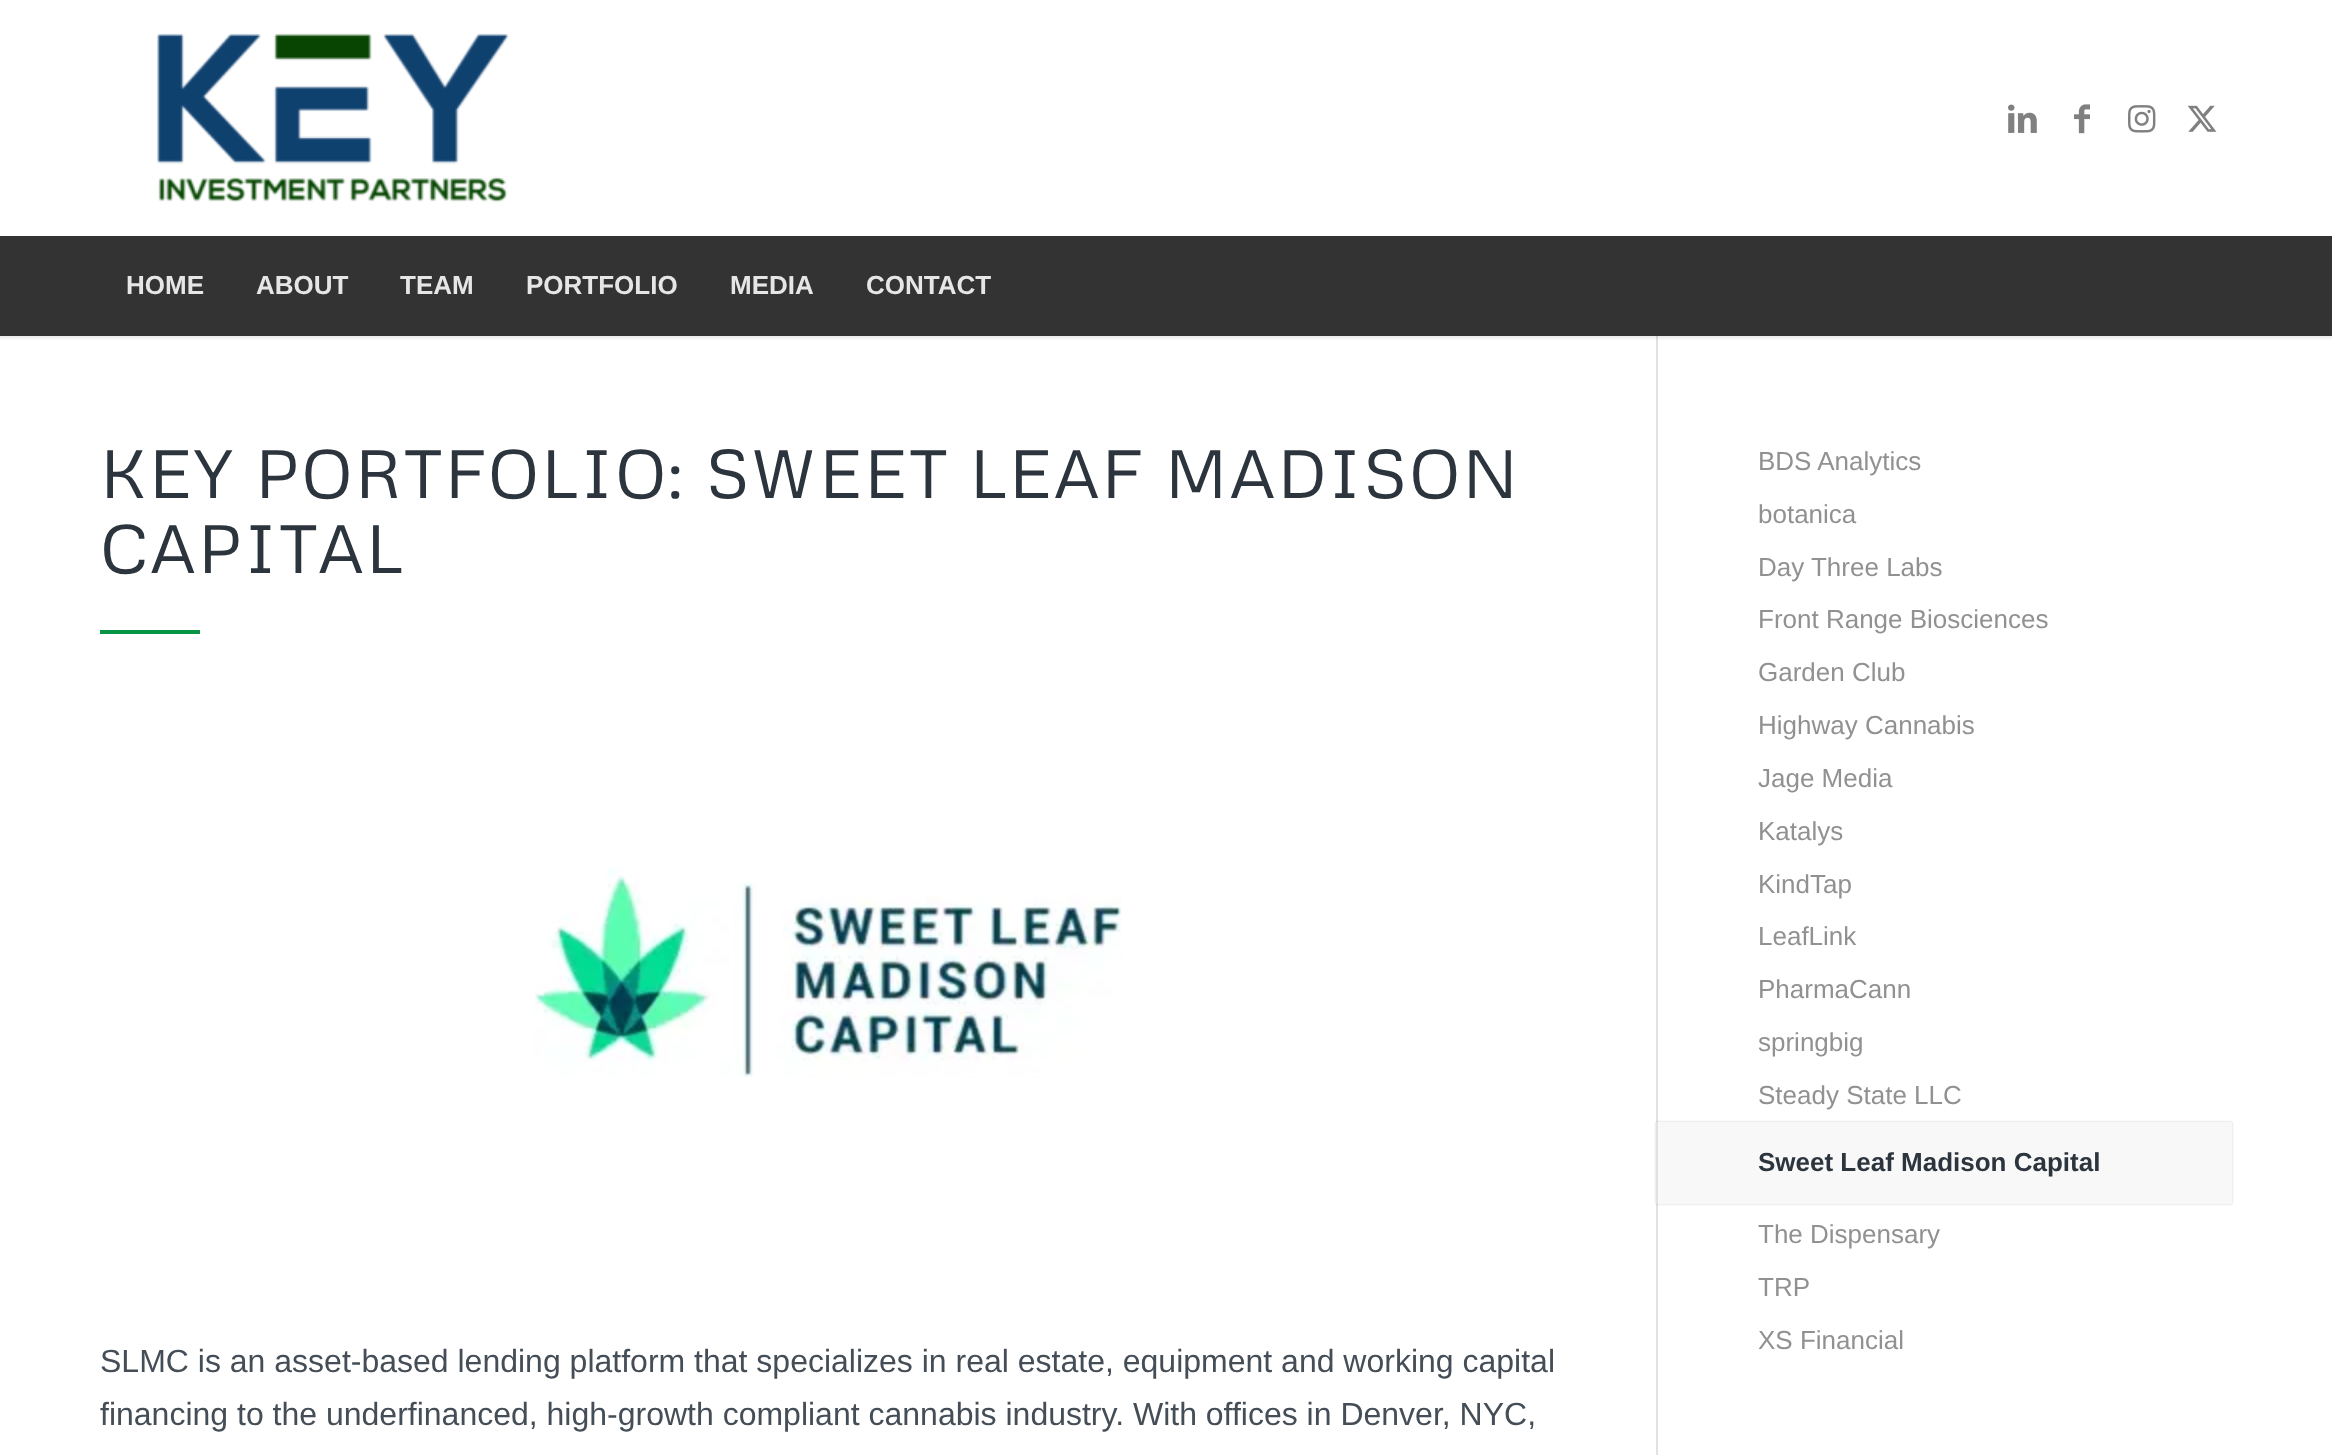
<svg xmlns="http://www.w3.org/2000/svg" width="2332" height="1455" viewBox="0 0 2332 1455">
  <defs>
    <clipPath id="clip1"><rect x="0" y="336" width="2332" height="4"/></clipPath>
    <filter id="blur1" x="-50%" y="-200%" width="200%" height="500%"><feGaussianBlur stdDeviation="2"/></filter>
    <clipPath id="clip2"><path d="M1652 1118H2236V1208H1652ZM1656 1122H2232V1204H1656Z" clip-rule="evenodd"/></clipPath>
    <filter id="blur2" x="-50%" y="-200%" width="200%" height="500%"><feGaussianBlur stdDeviation="1"/></filter>
  </defs>
  <rect width="100%" height="100%" fill="#ffffff"/>
  <rect x="1656" y="336" width="2" height="1119" fill="#e1e1e1"/>
  <g clip-path="url(#clip1)">
    <rect x="-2" y="-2" width="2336" height="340" fill="#000000" fill-opacity="0.1" filter="url(#blur1)"/>
  </g>
  <image x="157" y="33" width="352" height="169" href="img1.png"/>
  <image x="2008" y="104" width="29" height="29" href="img2.png"/>
  <image x="2074" y="104" width="16" height="30" href="img3.png"/>
  <image x="2128" y="105" width="28" height="28" href="img4.png"/>
  <image x="2187" y="105" width="30" height="27" href="img5.png"/>
  <rect x="0" y="236" width="2332" height="100" fill="#333333"/>
  <text x="126" y="294" font-family="Liberation Sans" font-size="26" font-weight="bold" fill="#e6e6e6">HOME</text>
  <text x="256" y="294" font-family="Liberation Sans" font-size="26" font-weight="bold" fill="#e6e6e6">ABOUT</text>
  <text x="400" y="294" font-family="Liberation Sans" font-size="26" font-weight="bold" fill="#e6e6e6">TEAM</text>
  <text x="526" y="294" font-family="Liberation Sans" font-size="26" font-weight="bold" fill="#e6e6e6">PORTFOLIO</text>
  <text x="730" y="294" font-family="Liberation Sans" font-size="26" font-weight="bold" fill="#e6e6e6">MEDIA</text>
  <text x="866" y="294" font-family="Liberation Sans" font-size="26" font-weight="bold" fill="#e6e6e6">CONTACT</text>
  <text x="100" y="498" font-family="Metrophobic" font-size="68" letter-spacing="2" fill="#2c353d">KEY PORTFOLIO: SWEET LEAF MADISON</text>
  <text x="100" y="573" font-family="Metrophobic" font-size="68" letter-spacing="2" fill="#2c353d">CAPITAL</text>
  <rect x="100" y="630" width="100" height="4" fill="#079444"/>
  <image x="534" y="867" width="588" height="211" href="img6.png"/>
  <text x="100" y="1372" font-family="Liberation Sans" font-size="32" fill="#454e57">SLMC is an asset-based lending platform that specializes in real estate, equipment and working capital</text>
  <text x="100" y="1425" font-family="Liberation Sans" font-size="32" fill="#454e57">financing to the underfinanced, high-growth compliant cannabis industry. With offices in Denver, NYC,</text>
  <text x="1758" y="470" font-family="Liberation Sans" font-size="26" fill="#919191">BDS Analytics</text>
  <text x="1758" y="523" font-family="Liberation Sans" font-size="26" fill="#919191">botanica</text>
  <text x="1758" y="576" font-family="Liberation Sans" font-size="26" fill="#919191">Day Three Labs</text>
  <text x="1758" y="628" font-family="Liberation Sans" font-size="26" fill="#919191">Front Range Biosciences</text>
  <text x="1758" y="681" font-family="Liberation Sans" font-size="26" fill="#919191">Garden Club</text>
  <text x="1758" y="734" font-family="Liberation Sans" font-size="26" fill="#919191">Highway Cannabis</text>
  <text x="1758" y="787" font-family="Liberation Sans" font-size="26" fill="#919191">Jage Media</text>
  <text x="1758" y="840" font-family="Liberation Sans" font-size="26" fill="#919191">Katalys</text>
  <text x="1758" y="893" font-family="Liberation Sans" font-size="26" fill="#919191">KindTap</text>
  <text x="1758" y="945" font-family="Liberation Sans" font-size="26" fill="#919191">LeafLink</text>
  <text x="1758" y="998" font-family="Liberation Sans" font-size="26" fill="#919191">PharmaCann</text>
  <text x="1758" y="1051" font-family="Liberation Sans" font-size="26" fill="#919191">springbig</text>
  <text x="1758" y="1104" font-family="Liberation Sans" font-size="26" fill="#919191">Steady State LLC</text>
  <g clip-path="url(#clip2)">
    <rect x="1656" y="1122" width="576" height="82" fill="#000000" fill-opacity="0.2" filter="url(#blur2)"/>
  </g>
  <rect x="1658" y="1122" width="574" height="82" fill="#f8f8f8"/>
  <text x="1758" y="1171" font-family="Liberation Sans" font-size="26" font-weight="bold" fill="#2c353d">Sweet Leaf Madison Capital</text>
  <text x="1758" y="1243" font-family="Liberation Sans" font-size="26" fill="#919191">The Dispensary</text>
  <text x="1758" y="1296" font-family="Liberation Sans" font-size="26" fill="#919191">TRP</text>
  <text x="1758" y="1349" font-family="Liberation Sans" font-size="26" fill="#919191">XS Financial</text>
</svg>
